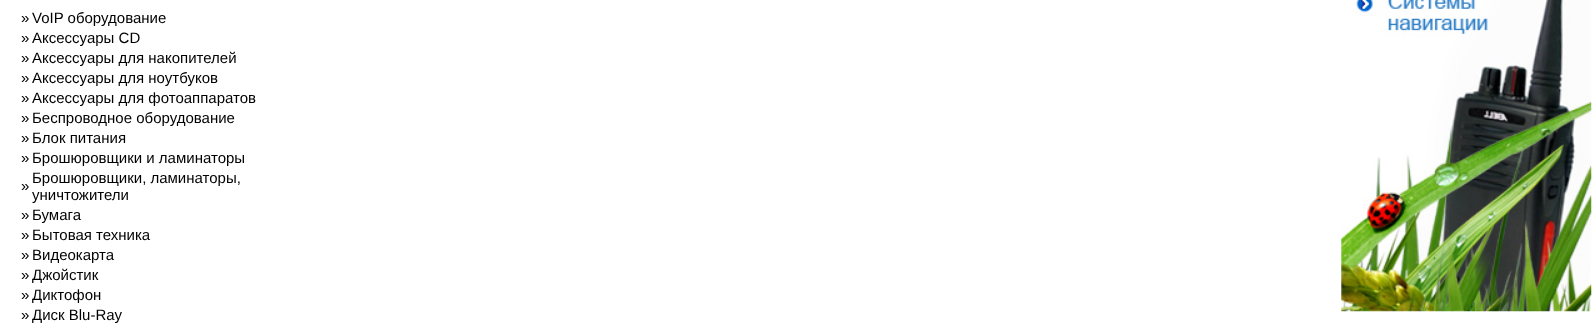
<svg xmlns="http://www.w3.org/2000/svg" width="1596" height="325" viewBox="0 0 1596 325">
  <rect width="100%" height="100%" fill="#ffffff"/>
  <text x="21" y="23" font-family="Liberation Sans" font-size="15" fill="#000000">»</text>
  <text x="32" y="23" font-family="Liberation Sans" font-size="15" fill="#000000">VoIP оборудование</text>
  <text x="21" y="43" font-family="Liberation Sans" font-size="15" fill="#000000">»</text>
  <text x="32" y="43" font-family="Liberation Sans" font-size="15" fill="#000000">Аксессуары CD</text>
  <text x="21" y="63" font-family="Liberation Sans" font-size="15" fill="#000000">»</text>
  <text x="32" y="63" font-family="Liberation Sans" font-size="15" fill="#000000">Аксессуары для накопителей</text>
  <text x="21" y="83" font-family="Liberation Sans" font-size="15" fill="#000000">»</text>
  <text x="32" y="83" font-family="Liberation Sans" font-size="15" fill="#000000">Аксессуары для ноутбуков</text>
  <text x="21" y="103" font-family="Liberation Sans" font-size="15" fill="#000000">»</text>
  <text x="32" y="103" font-family="Liberation Sans" font-size="15" fill="#000000">Аксессуары для фотоаппаратов</text>
  <text x="21" y="123" font-family="Liberation Sans" font-size="15" fill="#000000">»</text>
  <text x="32" y="123" font-family="Liberation Sans" font-size="15" fill="#000000">Беспроводное оборудование</text>
  <text x="21" y="143" font-family="Liberation Sans" font-size="15" fill="#000000">»</text>
  <text x="32" y="143" font-family="Liberation Sans" font-size="15" fill="#000000">Блок питания</text>
  <text x="21" y="163" font-family="Liberation Sans" font-size="15" fill="#000000">»</text>
  <text x="32" y="163" font-family="Liberation Sans" font-size="15" fill="#000000">Брошюровщики и ламинаторы</text>
  <text x="21" y="191" font-family="Liberation Sans" font-size="15" fill="#000000">»</text>
  <text x="32" y="183" font-family="Liberation Sans" font-size="15" fill="#000000">Брошюровщики, ламинаторы,</text>
  <text x="32" y="200" font-family="Liberation Sans" font-size="15" fill="#000000">уничтожители</text>
  <text x="21" y="220" font-family="Liberation Sans" font-size="15" fill="#000000">»</text>
  <text x="32" y="220" font-family="Liberation Sans" font-size="15" fill="#000000">Бумага</text>
  <text x="21" y="240" font-family="Liberation Sans" font-size="15" fill="#000000">»</text>
  <text x="32" y="240" font-family="Liberation Sans" font-size="15" fill="#000000">Бытовая техника</text>
  <text x="21" y="260" font-family="Liberation Sans" font-size="15" fill="#000000">»</text>
  <text x="32" y="260" font-family="Liberation Sans" font-size="15" fill="#000000">Видеокарта</text>
  <text x="21" y="280" font-family="Liberation Sans" font-size="15" fill="#000000">»</text>
  <text x="32" y="280" font-family="Liberation Sans" font-size="15" fill="#000000">Джойстик</text>
  <text x="21" y="300" font-family="Liberation Sans" font-size="15" fill="#000000">»</text>
  <text x="32" y="300" font-family="Liberation Sans" font-size="15" fill="#000000">Диктофон</text>
  <text x="21" y="320" font-family="Liberation Sans" font-size="15" fill="#000000">»</text>
  <text x="32" y="320" font-family="Liberation Sans" font-size="15" fill="#000000">Диск Blu-Ray</text>
  <image x="1341" y="0" width="251" height="312" href="img1.png"/>
</svg>
